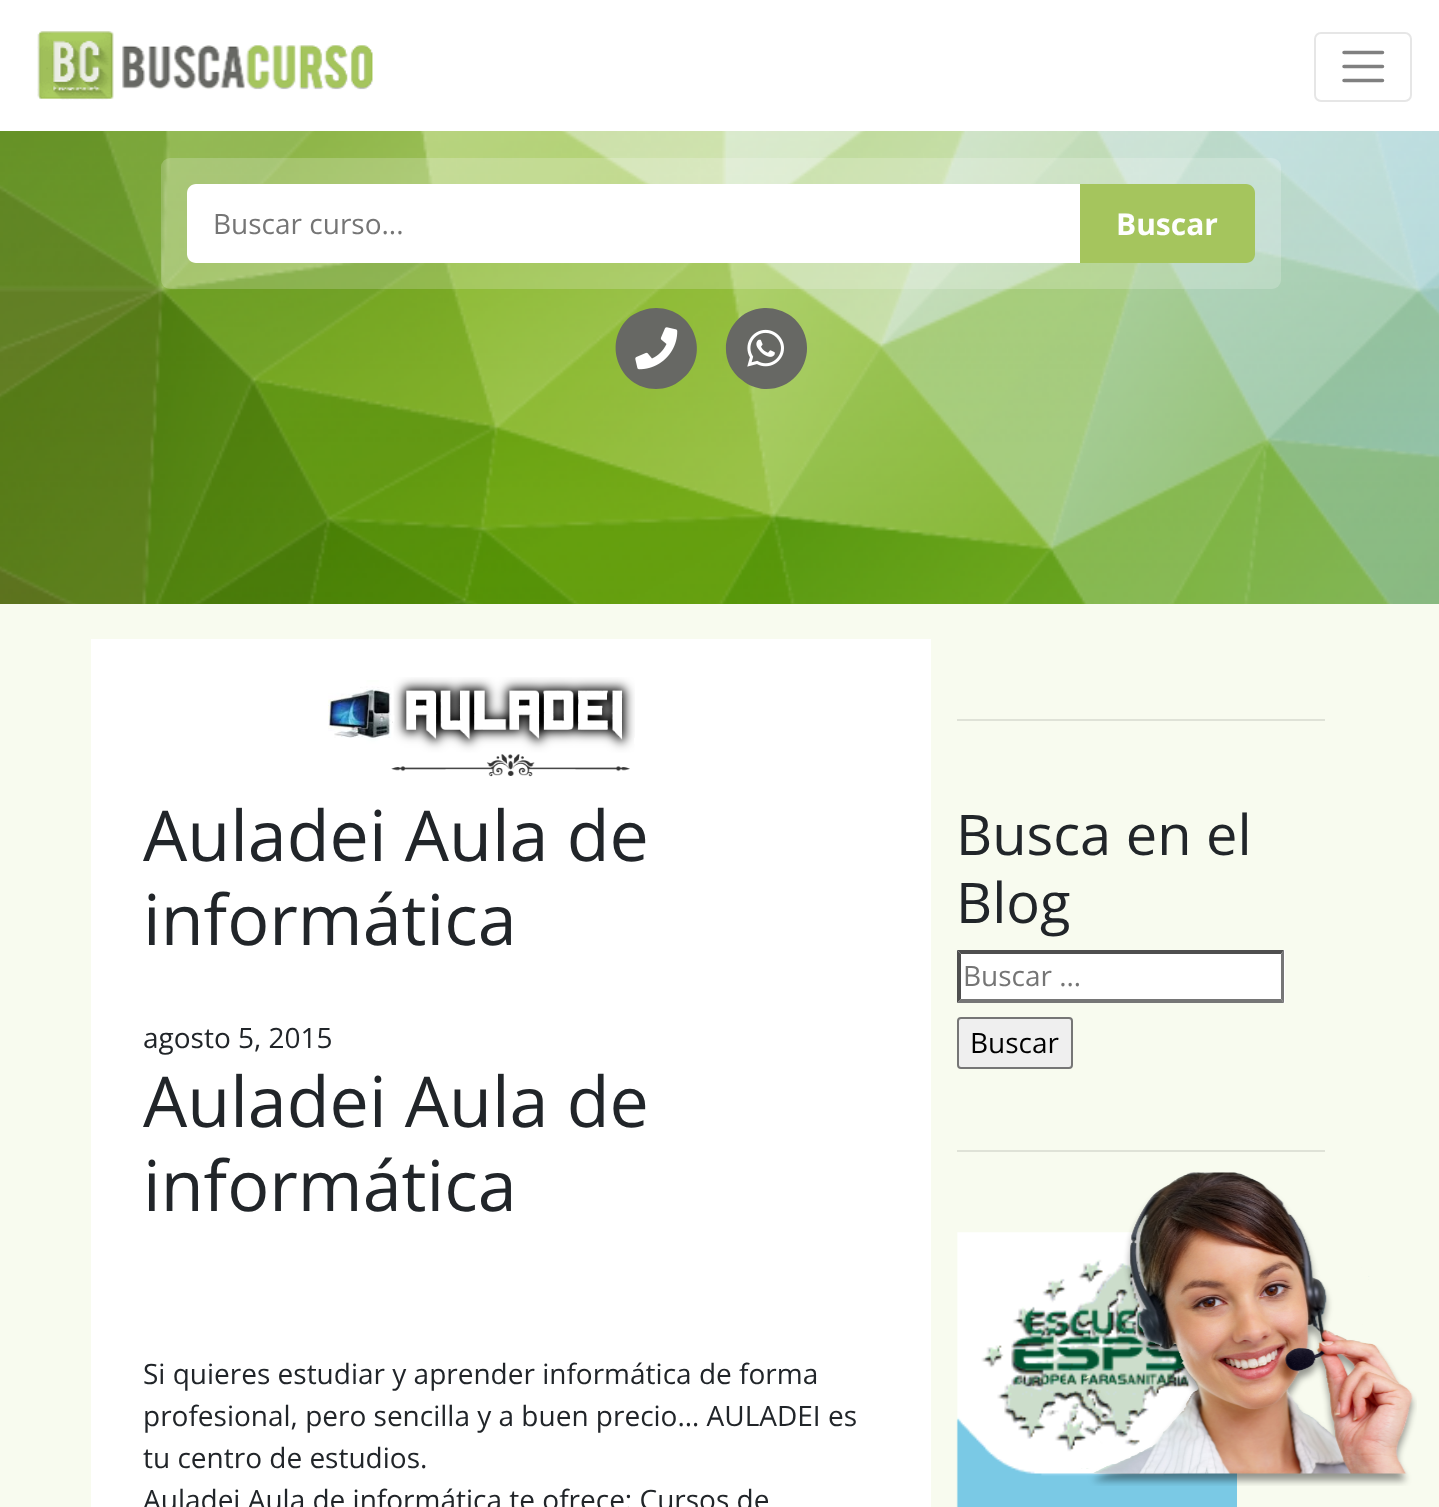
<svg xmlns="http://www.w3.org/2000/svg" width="1439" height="1507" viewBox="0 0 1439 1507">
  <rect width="100%" height="100%" fill="#f8fbef"/>
  <rect x="0" y="0" width="1439" height="131" fill="#ffffff"/>
  <image x="37" y="31" width="336" height="69" href="img1.png"/>
  <rect x="1315" y="33" width="96" height="68" rx="6" fill="none" stroke="#e6e6e6" stroke-width="2"/>
  <path d="M1344 52.5H1382.5M1344 66.5H1382.5M1344 80.5H1382.5" fill="none" stroke="#808080" stroke-width="3.5" stroke-linecap="round"/>
  <image x="0" y="131" width="1439" height="473" href="img2.png"/>
  <rect x="161" y="158" width="1120" height="131" rx="9" fill="#ffffff" fill-opacity="0.2"/>
  <path d="M196 184H1080V263H196C191 263 187 259 187 254V193C187 188 191 184 196 184Z" fill="#ffffff"/>
  <text x="213" y="234" font-family="Open Sans" font-size="28" fill="#757575">Buscar curso...</text>
  <path d="M1080 184H1246C1251 184 1255 188 1255 193V254C1255 259 1251 263 1246 263H1080Z" fill="#a5c55d"/>
  <text x="1116" y="235" font-family="Open Sans" font-size="30" font-weight="bold" fill="#fefefe">Buscar</text>
  <path d="M656 308C647 308 639 311 631 316C601 340 618 389 656 389C665 389 674 386 681 380C712 357 695 308 656 308Z" fill="#676864"/>
  <image x="635" y="327" width="43" height="43" href="img3.png"/>
  <path d="M766 308C728 308 711 357 742 380C749 386 758 389 766 389C805 389 822 340 791 316C784 311 775 308 766 308Z" fill="#676864"/>
  <image x="747" y="329" width="37" height="38" href="img4.png"/>
  <rect x="91" y="639" width="840" height="868" fill="#ffffff"/>
  <image x="328" y="677" width="307" height="100" href="img5.png"/>
  <text x="143" y="861" font-family="Open Sans" font-size="70" fill="#212529">Auladei Aula de</text>
  <text x="143" y="945" font-family="Open Sans" font-size="70" fill="#212529">informática</text>
  <text x="143" y="1048" font-family="Open Sans" font-size="28" fill="#212529">agosto 5, 2015</text>
  <text x="143" y="1127" font-family="Open Sans" font-size="70" fill="#212529">Auladei Aula de</text>
  <text x="143" y="1211" font-family="Open Sans" font-size="70" fill="#212529">informática</text>
  <text x="143" y="1384" font-family="Open Sans" font-size="28" fill="#212529">Si quieres estudiar y aprender informática de forma</text>
  <text x="143" y="1426" font-family="Open Sans" font-size="28" fill="#212529">profesional, pero sencilla y a buen precio… AULADEI es</text>
  <text x="143" y="1468" font-family="Open Sans" font-size="28" fill="#212529">tu centro de estudios.</text>
  <text x="143" y="1510" font-family="Open Sans" font-size="28" fill="#212529">Auladei Aula de informática te ofrece: Cursos de</text>
  <rect x="957" y="719" width="368" height="2" fill="#dfe2d7"/>
  <text x="956" y="855" font-family="Open Sans" font-size="56" fill="#212529">Busca en el</text>
  <text x="956" y="923" font-family="Open Sans" font-size="56" fill="#212529">Blog</text>
  <rect x="957" y="950" width="328" height="53" fill="#ffffff"/>
  <path d="M957 950H1284L1281 954H961Z" fill="#4f4f4f"/>
  <path d="M1284 950V1003L1281 999V954Z" fill="#767676"/>
  <path d="M1284 1003H957L961 999H1281Z" fill="#767676"/>
  <path d="M957 1003V950L961 954V999Z" fill="#4f4f4f"/>
  <text x="963" y="986" font-family="Open Sans" font-size="28" fill="#757575">Buscar …</text>
  <rect x="958" y="1018" width="114" height="50" rx="3" fill="#efefef" stroke="#767676" stroke-width="2"/>
  <text x="970" y="1053" font-family="Open Sans" font-size="28" fill="#000000">Buscar</text>
  <rect x="957" y="1150" width="368" height="2" fill="#dfe2d7"/>
  <image x="956" y="1232" width="281" height="275" href="img6.png"/>
  <image x="1081" y="1172" width="336" height="314" href="img7.png"/>
</svg>
